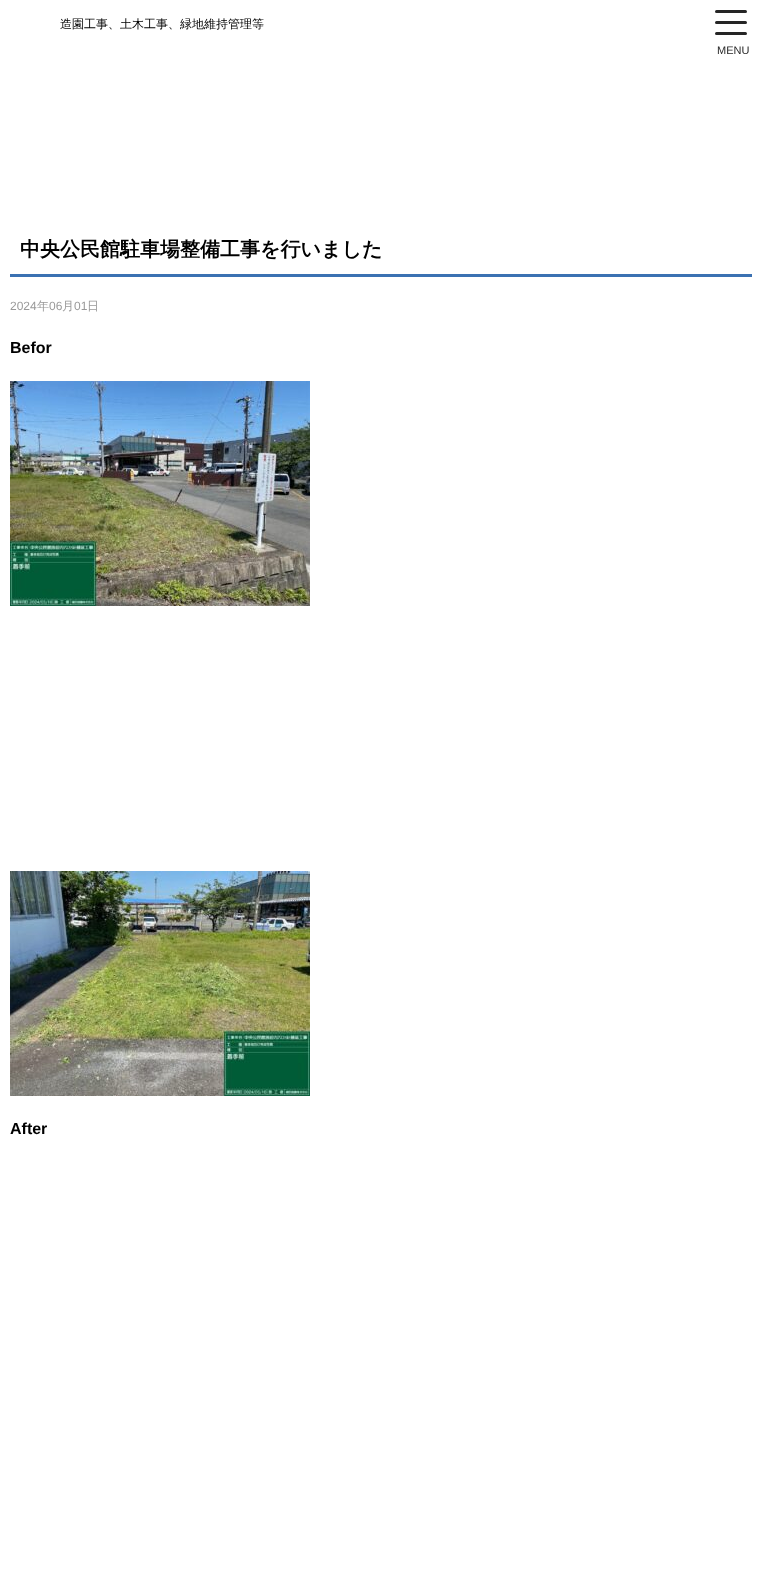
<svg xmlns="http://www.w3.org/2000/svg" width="762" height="1578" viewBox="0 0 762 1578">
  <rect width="100%" height="100%" fill="#ffffff"/>
  <text x="60" y="28" font-family="WenQuanYi Zen Hei" font-size="12" font-weight="500" fill="#000000">造園工事、土木工事、緑地維持管理等</text>
  <rect x="715" y="10" width="32" height="3" rx="1.5" fill="#252525"/>
  <rect x="715" y="21" width="32" height="3" rx="1.5" fill="#252525"/>
  <rect x="715" y="32" width="32" height="3" rx="1.5" fill="#252525"/>
  <text x="717" y="54" font-family="Liberation Sans" font-size="11" fill="#252525">MENU</text>
  <rect x="10" y="274" width="742" height="3" fill="#3b71b2"/>
  <text x="20" y="256" font-family="WenQuanYi Zen Hei" font-size="20" font-weight="bold" fill="#000000">中央公民館駐車場整備工事を行いました</text>
  <text x="10" y="310" font-family="Liberation Sans" font-size="12" fill="#999999">2024</text>
  <text x="37" y="310" font-family="WenQuanYi Zen Hei" font-size="12" font-weight="500" fill="#999999">年</text>
  <text x="49" y="310" font-family="Liberation Sans" font-size="12" fill="#999999">06</text>
  <text x="62" y="310" font-family="WenQuanYi Zen Hei" font-size="12" font-weight="500" fill="#999999">月</text>
  <text x="74" y="310" font-family="Liberation Sans" font-size="12" fill="#999999">01</text>
  <text x="87" y="310" font-family="WenQuanYi Zen Hei" font-size="12" font-weight="500" fill="#999999">日</text>
  <text x="10" y="353" font-family="Liberation Sans" font-size="16" font-weight="bold" fill="#000000">Befor</text>
  <image x="10" y="381" width="300" height="225" href="img1.png"/>
  <image x="10" y="871" width="300" height="225" href="img2.png"/>
  <text x="10" y="1134" font-family="Liberation Sans" font-size="16" font-weight="bold" fill="#000000">After</text>
</svg>
